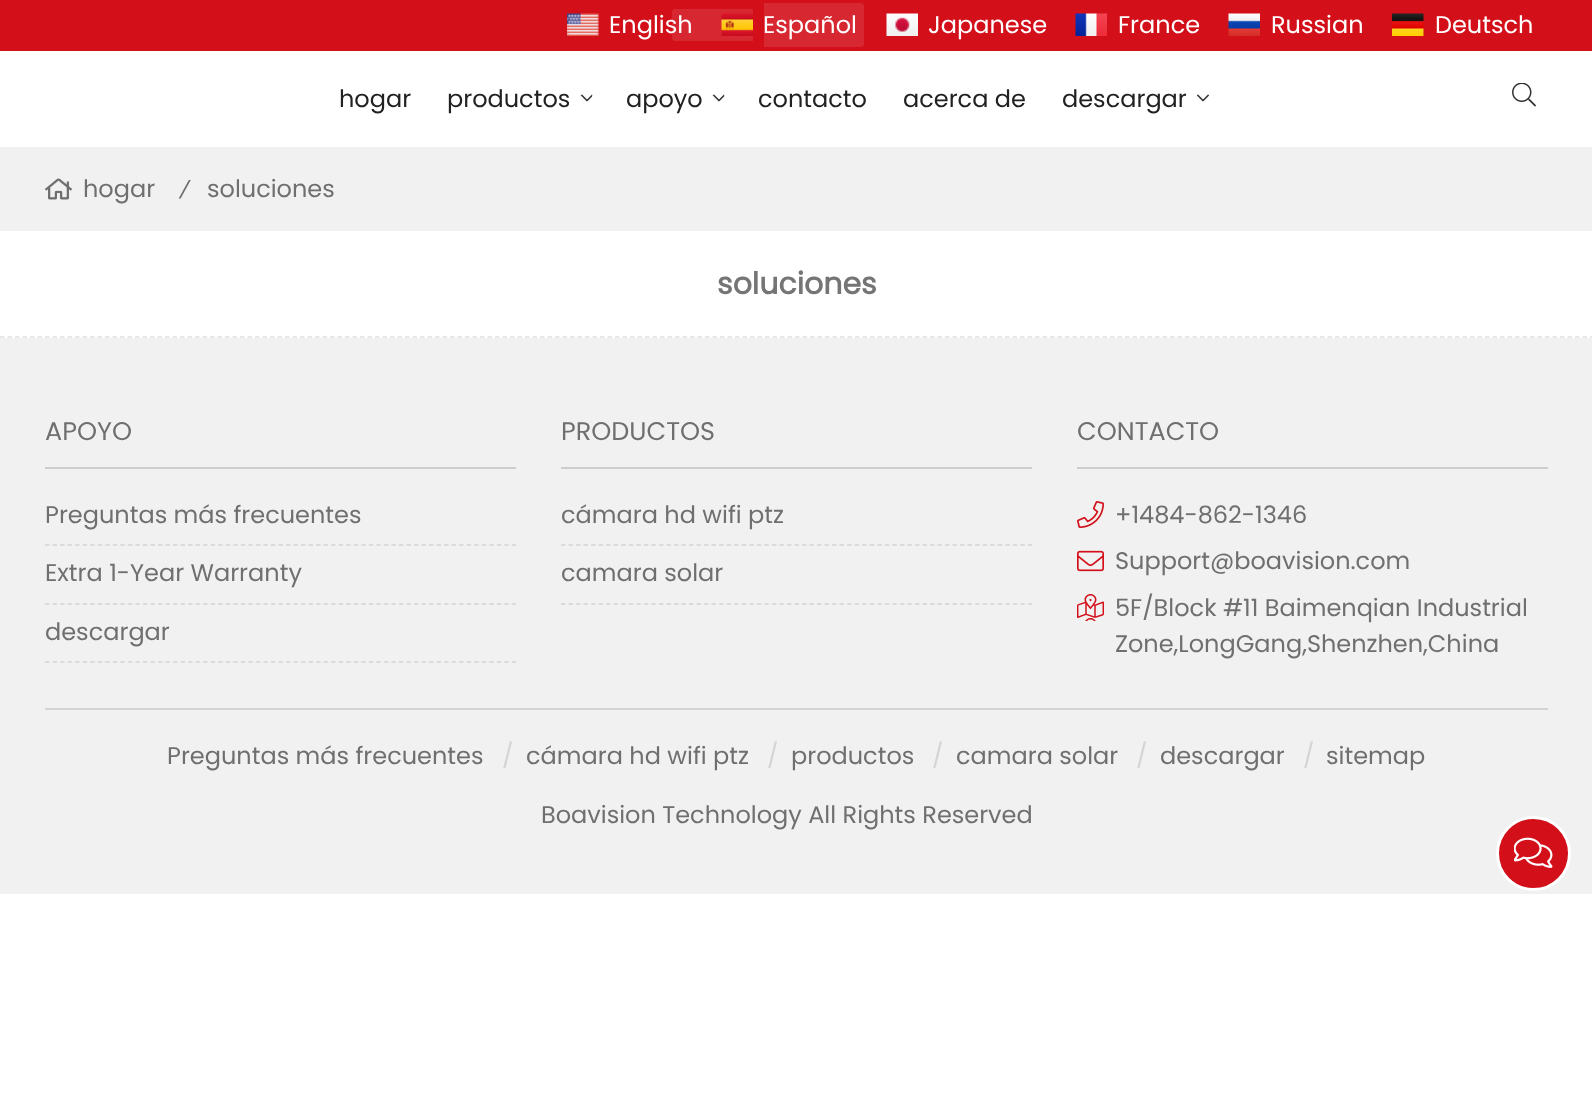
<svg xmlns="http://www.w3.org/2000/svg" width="1592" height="1100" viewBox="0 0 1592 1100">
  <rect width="100%" height="100%" fill="#ffffff"/>
  <rect x="0" y="0" width="1592" height="51" fill="#d3101a"/>
  <image x="567" y="13" width="32" height="23" href="img1.png"/>
  <text x="609" y="33" font-family="Poppins" font-size="24" fill="#ffffff">English</text>
  <path d="M675 9H753V41H675C673.5 41 672 39.5 672 38V12C672 10.5 673.5 9 675 9Z" fill="#ffffff" fill-opacity="0.1"/>
  <path d="M764 3H861C862.5 3 864 4.5 864 6V44C864 45.5 862.5 47 861 47H764Z" fill="#d72831"/>
  <image x="721" y="13" width="32" height="23" href="img2.png"/>
  <text x="763" y="33" font-family="Poppins" font-size="24" fill="#ffffff">Español</text>
  <image x="886" y="13" width="32" height="23" href="img3.png"/>
  <text x="928" y="33" font-family="Poppins" font-size="24" fill="#ffffff">Japanese</text>
  <image x="1075" y="13" width="32" height="23" href="img4.png"/>
  <text x="1118" y="33" font-family="Poppins" font-size="24" fill="#ffffff">France</text>
  <image x="1228" y="13" width="32" height="23" href="img5.png"/>
  <text x="1271" y="33" font-family="Poppins" font-size="24" fill="#ffffff">Russian</text>
  <image x="1392" y="13" width="32" height="23" href="img6.png"/>
  <text x="1435" y="33" font-family="Poppins" font-size="24" fill="#ffffff">Deutsch</text>
  <text x="339" y="107" font-family="Poppins" font-size="24" fill="#212121">hogar</text>
  <text x="447" y="107" font-family="Poppins" font-size="24" fill="#212121">productos</text>
  <image x="580" y="94" width="13" height="8" href="img7.png"/>
  <text x="626" y="107" font-family="Poppins" font-size="24" fill="#212121">apoyo</text>
  <image x="712" y="94" width="13" height="8" href="img7.png"/>
  <text x="758" y="107" font-family="Poppins" font-size="24" fill="#212121">contacto</text>
  <text x="903" y="107" font-family="Poppins" font-size="24" fill="#212121">acerca de</text>
  <text x="1062" y="107" font-family="Poppins" font-size="24" fill="#212121">descargar</text>
  <image x="1197" y="94" width="12" height="8" href="img8.png"/>
  <image x="1512" y="83" width="24" height="24" href="img9.png"/>
  <rect x="0" y="147" width="1592" height="84" fill="#f1f1f1"/>
  <image x="45" y="178" width="27" height="22" href="img10.png"/>
  <text x="83" y="197" font-family="Poppins" font-size="24" fill="#6f6f6f">hogar</text>
  <text x="180" y="197" font-family="Roboto" font-size="24" font-style="italic" fill="#6f6f6f">/</text>
  <text x="207" y="197" font-family="Poppins" font-size="24" fill="#6f6f6f">soluciones</text>
  <path d="M0 337H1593" fill="none" stroke="#e0e0e0" stroke-width="1.5" stroke-dasharray="4.5 3"/>
  <text x="717" y="294" font-family="Poppins" font-size="30" font-weight="bold" fill="#757575">soluciones</text>
  <rect x="0" y="338" width="1592" height="556" fill="#f1f1f1"/>
  <rect x="45" y="467" width="471" height="2" fill="#cdcdcd"/>
  <text x="45" y="440" font-family="Poppins" font-size="25.5" fill="#6f6f6f">APOYO</text>
  <path d="M45 545H516" fill="none" stroke="#d4d4d4" stroke-width="1.5" stroke-dasharray="4.5 3.03"/>
  <text x="45" y="523" font-family="Poppins" font-size="24" fill="#6f6f6f">Preguntas más frecuentes</text>
  <path d="M45 604H516" fill="none" stroke="#d4d4d4" stroke-width="1.5" stroke-dasharray="4.5 3.03"/>
  <text x="45" y="581" font-family="Poppins" font-size="24" fill="#6f6f6f">Extra 1-Year Warranty</text>
  <path d="M45 662H516" fill="none" stroke="#d4d4d4" stroke-width="1.5" stroke-dasharray="4.5 3.03"/>
  <text x="45" y="640" font-family="Poppins" font-size="24" fill="#6f6f6f">descargar</text>
  <rect x="561" y="467" width="471" height="2" fill="#cdcdcd"/>
  <text x="561" y="440" font-family="Poppins" font-size="25.5" fill="#6f6f6f">PRODUCTOS</text>
  <path d="M561 545H1032" fill="none" stroke="#d4d4d4" stroke-width="1.5" stroke-dasharray="4.5 3.03"/>
  <text x="561" y="523" font-family="Poppins" font-size="24" fill="#6f6f6f">cámara hd wifi ptz</text>
  <path d="M561 604H1032" fill="none" stroke="#d4d4d4" stroke-width="1.5" stroke-dasharray="4.5 3.03"/>
  <text x="561" y="581" font-family="Poppins" font-size="24" fill="#6f6f6f">camara solar</text>
  <rect x="1077" y="467" width="471" height="2" fill="#cdcdcd"/>
  <text x="1077" y="440" font-family="Poppins" font-size="25.5" fill="#6f6f6f">CONTACTO</text>
  <image x="1077" y="501" width="27" height="27" href="img11.png"/>
  <text x="1115" y="523" font-family="Poppins" font-size="24" fill="#6f6f6f">+1484-862-1346</text>
  <image x="1077" y="550" width="27" height="22" href="img12.png"/>
  <text x="1115" y="569" font-family="Poppins" font-size="24" fill="#6f6f6f">Support@boavision.com</text>
  <image x="1077" y="594" width="27" height="27" href="img13.png"/>
  <text x="1115" y="616" font-family="Poppins" font-size="24" fill="#6f6f6f">5F/Block #11 Baimenqian Industrial</text>
  <text x="1115" y="652" font-family="Poppins" font-size="24" fill="#6f6f6f">Zone,LongGang,Shenzhen,China</text>
  <rect x="45" y="708" width="1503" height="2" fill="#d4d4d4"/>
  <text x="167" y="764" font-family="Poppins" font-size="24" fill="#6f6f6f">Preguntas más frecuentes</text>
  <text x="502" y="764" font-family="Poppins" font-size="24" fill="#d4d4d4">/</text>
  <text x="526" y="764" font-family="Poppins" font-size="24" fill="#6f6f6f">cámara hd wifi ptz</text>
  <text x="767" y="764" font-family="Poppins" font-size="24" fill="#d4d4d4">/</text>
  <text x="791" y="764" font-family="Poppins" font-size="24" fill="#6f6f6f">productos</text>
  <text x="932" y="764" font-family="Poppins" font-size="24" fill="#d4d4d4">/</text>
  <text x="956" y="764" font-family="Poppins" font-size="24" fill="#6f6f6f">camara solar</text>
  <text x="1136" y="764" font-family="Poppins" font-size="24" fill="#d4d4d4">/</text>
  <text x="1160" y="764" font-family="Poppins" font-size="24" fill="#6f6f6f">descargar</text>
  <text x="1303" y="764" font-family="Poppins" font-size="24" fill="#d4d4d4">/</text>
  <text x="1326" y="764" font-family="Poppins" font-size="24" fill="#6f6f6f">sitemap</text>
  <text x="541" y="823" font-family="Poppins" font-size="24" fill="#6f6f6f">Boavision Technology All Rights Reserved</text>
  <circle cx="1533.5" cy="853.5" r="36" fill="#d3101a" stroke="#ffffff" stroke-width="3"/>
  <image x="1514" y="837" width="39" height="31" href="img14.png"/>
</svg>
